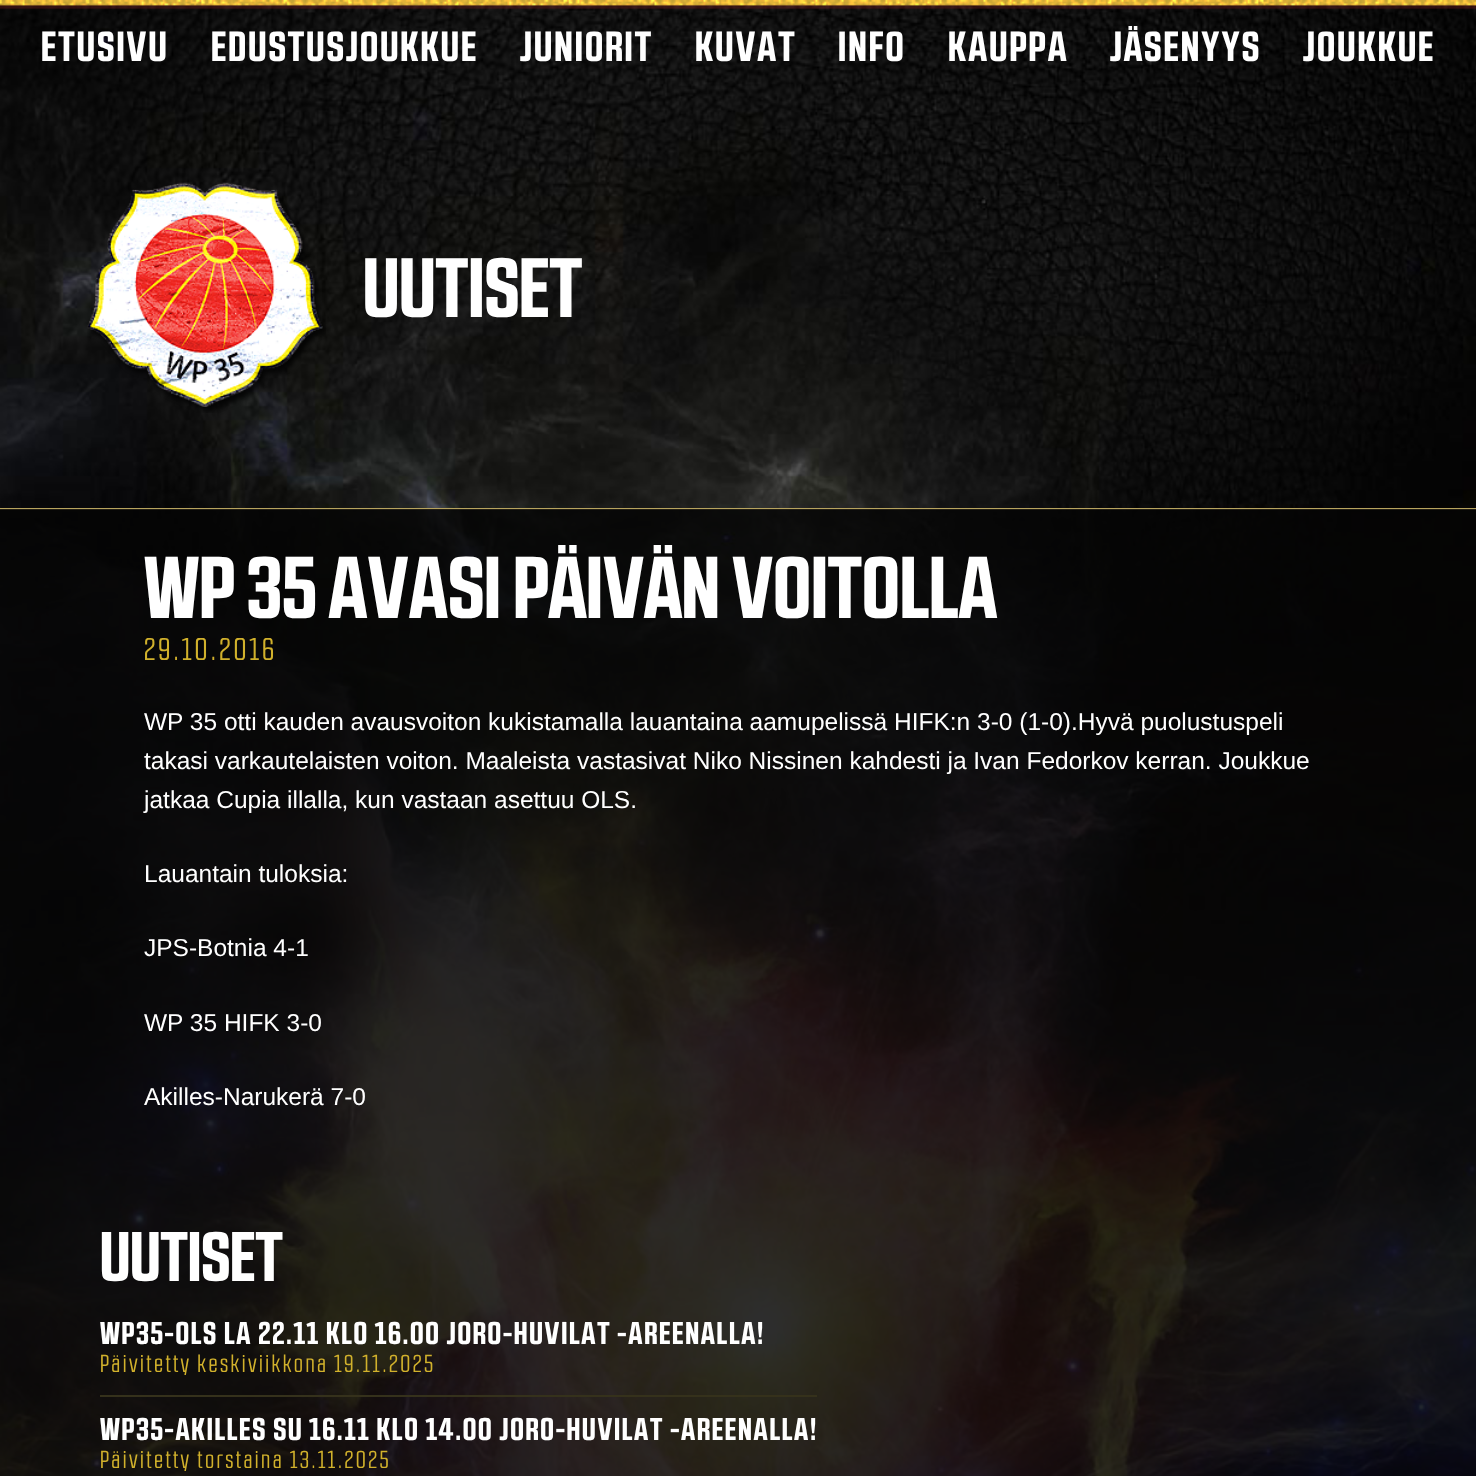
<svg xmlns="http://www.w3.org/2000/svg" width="1476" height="1476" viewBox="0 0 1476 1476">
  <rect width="100%" height="100%" fill="#ffffff"/>
  <image x="0" y="4" width="1476" height="1472" href="img1.png"/>
  <rect x="0" y="508" width="1476" height="2" fill="#b7a35e"/>
  <image x="0" y="0" width="1476" height="10" href="img2.png"/>
  <text x="41" y="61" font-family="'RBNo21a'" font-size="42" font-weight="bold" letter-spacing="2.1" fill="#ffffff">ETUSIVU</text>
  <text x="211" y="61" font-family="'RBNo21a'" font-size="42" font-weight="bold" letter-spacing="2.1" fill="#ffffff">EDUSTUSJOUKKUE</text>
  <text x="520" y="61" font-family="'RBNo21a'" font-size="42" font-weight="bold" letter-spacing="2.1" fill="#ffffff">JUNIORIT</text>
  <text x="695" y="61" font-family="'RBNo21a'" font-size="42" font-weight="bold" letter-spacing="2.1" fill="#ffffff">KUVAT</text>
  <text x="838" y="61" font-family="'RBNo21a'" font-size="42" font-weight="bold" letter-spacing="2.1" fill="#ffffff">INFO</text>
  <text x="948" y="61" font-family="'RBNo21a'" font-size="42" font-weight="bold" letter-spacing="2.1" fill="#ffffff">KAUPPA</text>
  <text x="1110" y="61" font-family="'RBNo21a'" font-size="42" font-weight="bold" letter-spacing="2.1" fill="#ffffff">JÄSENYYS</text>
  <text x="1303" y="61" font-family="'RBNo21a'" font-size="42" font-weight="bold" letter-spacing="2.1" fill="#ffffff">JOUKKUE</text>
  <image x="87" y="182" width="239" height="231" href="img3.png"/>
  <text x="363" y="317" font-family="'RBNo21a'" font-size="84" font-weight="bold" fill="#ffffff">UUTISET</text>
  <rect x="0" y="509" width="1476" height="967" fill="#050505" fill-opacity="0.84"/>
  <text x="144" y="618" font-family="'RBNo21a'" font-size="87.5" font-weight="bold" fill="#ffffff">WP 35 AVASI PÄIVÄN VOITOLLA</text>
  <text x="144" y="660" font-family="'RBNo21a'" font-size="31.5" letter-spacing="3.1" fill="#d1b12c">29.10.2016</text>
  <text x="144" y="730" font-family="Liberation Sans" font-size="24.5" fill="#ffffff">WP 35 otti kauden avausvoiton kukistamalla lauantaina aamupelissä HIFK:n 3-0 (1-0).Hyvä puolustuspeli</text>
  <text x="144" y="769" font-family="Liberation Sans" font-size="24.5" fill="#ffffff">takasi varkautelaisten voiton. Maaleista vastasivat Niko Nissinen kahdesti ja Ivan Fedorkov kerran. Joukkue</text>
  <text x="144" y="808" font-family="Liberation Sans" font-size="24.5" fill="#ffffff">jatkaa Cupia illalla, kun vastaan asettuu OLS.</text>
  <text x="144" y="882" font-family="Liberation Sans" font-size="24.5" fill="#ffffff">Lauantain tuloksia:</text>
  <text x="144" y="956" font-family="Liberation Sans" font-size="24.5" fill="#ffffff">JPS-Botnia 4-1</text>
  <text x="144" y="1031" font-family="Liberation Sans" font-size="24.5" fill="#ffffff">WP 35 HIFK 3-0</text>
  <text x="144" y="1105" font-family="Liberation Sans" font-size="24.5" fill="#ffffff">Akilles-Narukerä 7-0</text>
  <text x="100" y="1281" font-family="'RBNo21a'" font-size="70" font-weight="bold" fill="#ffffff">UUTISET</text>
  <rect x="100" y="1395" width="717" height="2" fill="#35311b"/>
  <text x="100" y="1344" font-family="'RBNo21a'" font-size="31.5" font-weight="bold" letter-spacing="1.75" fill="#ffffff">WP35-OLS LA 22.11 KLO 16.00 JORO-HUVILAT -AREENALLA!</text>
  <text x="100" y="1372" font-family="'RBNo21a'" font-size="24.5" letter-spacing="2.45" fill="#d1b12c">Päivitetty keskiviikkona 19.11.2025</text>
  <text x="100" y="1440" font-family="'RBNo21a'" font-size="31.5" font-weight="bold" letter-spacing="1.75" fill="#ffffff">WP35-AKILLES SU 16.11 KLO 14.00 JORO-HUVILAT -AREENALLA!</text>
  <text x="100" y="1468" font-family="'RBNo21a'" font-size="24.5" letter-spacing="2.45" fill="#d1b12c">Päivitetty torstaina 13.11.2025</text>
</svg>
